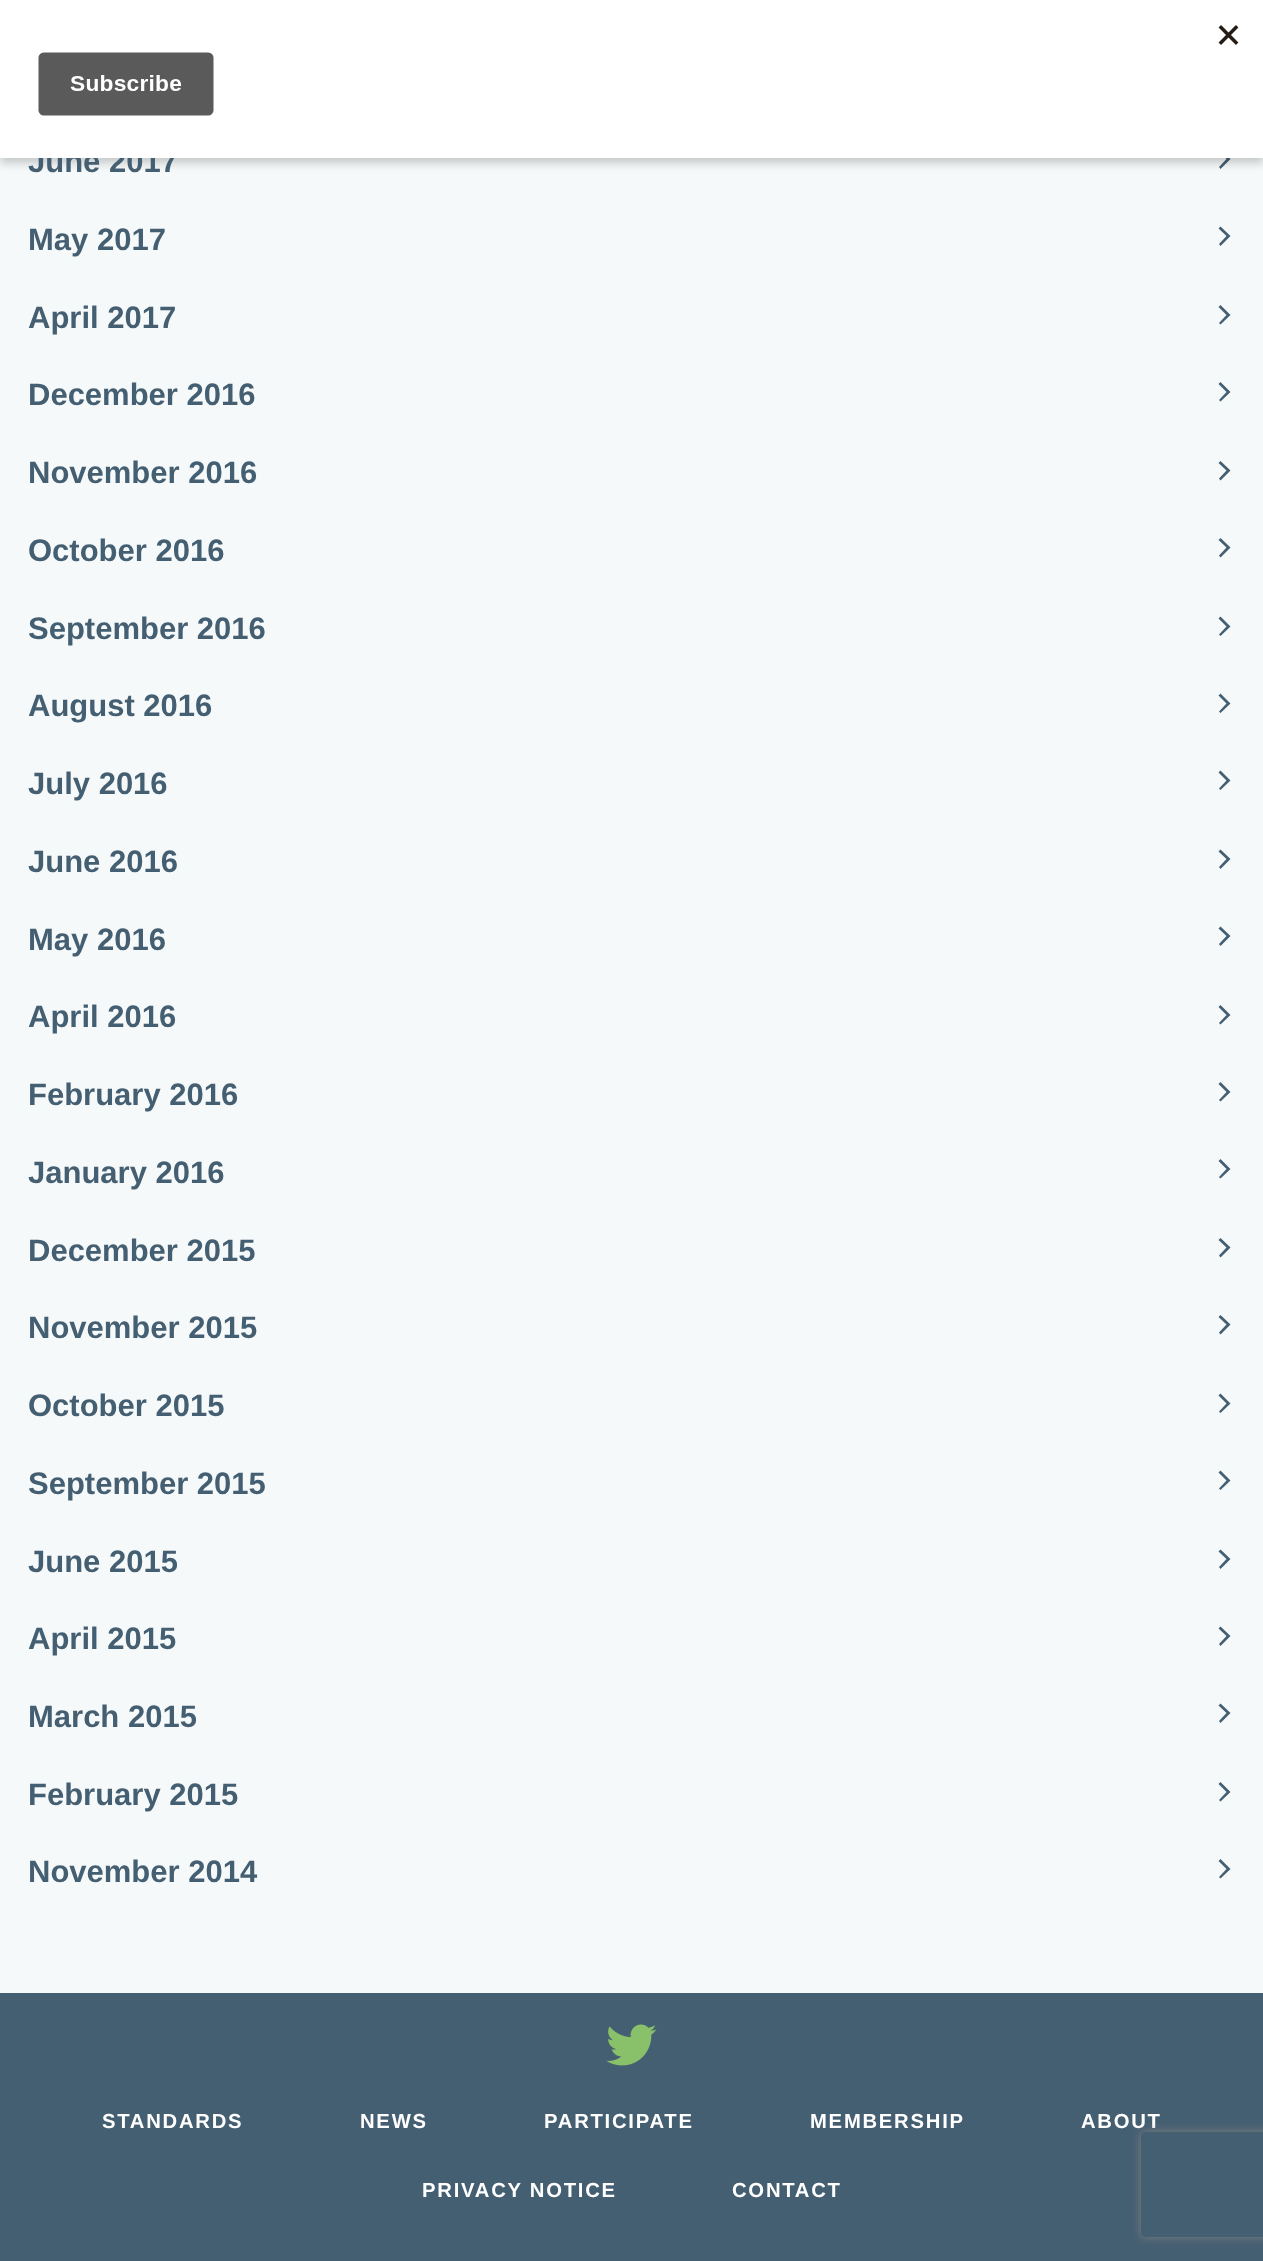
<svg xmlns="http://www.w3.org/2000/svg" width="1263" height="2261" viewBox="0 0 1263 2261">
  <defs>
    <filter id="blur1" x="-50%" y="-200%" width="200%" height="500%"><feGaussianBlur stdDeviation="5"/></filter>
    <clipPath id="clip1"><path d="M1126 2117H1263V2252H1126ZM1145 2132H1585C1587 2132 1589 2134 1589 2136V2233C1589 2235 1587 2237 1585 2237H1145C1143 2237 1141 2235 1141 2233V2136C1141 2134 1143 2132 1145 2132Z" clip-rule="evenodd"/></clipPath>
    <filter id="blur2" x="-50%" y="-200%" width="200%" height="500%"><feGaussianBlur stdDeviation="4.5"/></filter>
  </defs>
  <rect width="100%" height="100%" fill="#f6f9fa"/>
  <path d="M1230.5 159L1220.5 169L1219 167L1226.5 159L1218.5 151.5L1220.5 149.5Z" fill="#455f72"/>
  <rect x="0" y="5" width="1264" height="158" fill="#000000" fill-opacity="0.2" filter="url(#blur1)"/>
  <text x="28" y="172" font-family="Liberation Sans" font-size="31" font-weight="bold" fill="#455f72">June 2017</text>
  <rect x="0" y="0" width="1263" height="158" fill="#ffffff"/>
  <image x="38" y="25" width="1201" height="91" href="img1.png"/>
  <text x="28" y="250" font-family="Liberation Sans" font-size="31" font-weight="bold" fill="#455f72">May 2017</text>
  <path d="M1230.5 236L1220.5 246L1219 244L1226.5 236L1218.5 228.5L1220.5 226.5Z" fill="#455f72"/>
  <text x="28" y="328" font-family="Liberation Sans" font-size="31" font-weight="bold" fill="#455f72">April 2017</text>
  <path d="M1230.5 315L1220.5 324.5L1219 323L1226.5 315L1218.5 307L1220.5 305Z" fill="#455f72"/>
  <text x="28" y="405" font-family="Liberation Sans" font-size="31" font-weight="bold" fill="#455f72">December 2016</text>
  <path d="M1230.5 392L1220.5 401.5L1219 400L1226.5 392L1218.5 384L1220.5 382Z" fill="#455f72"/>
  <text x="28" y="483" font-family="Liberation Sans" font-size="31" font-weight="bold" fill="#455f72">November 2016</text>
  <path d="M1230.5 470.5L1220.5 480.5L1219 478.5L1226.5 470.5L1218.5 463L1220.5 461Z" fill="#455f72"/>
  <text x="28" y="561" font-family="Liberation Sans" font-size="31" font-weight="bold" fill="#455f72">October 2016</text>
  <path d="M1230.5 547.5L1220.5 557.5L1219 555.5L1226.5 547.5L1218.5 540L1220.5 538Z" fill="#455f72"/>
  <text x="28" y="639" font-family="Liberation Sans" font-size="31" font-weight="bold" fill="#455f72">September 2016</text>
  <path d="M1230.5 626.5L1220.5 636L1219 634.5L1226.5 626.5L1218.5 618.5L1220.5 616.5Z" fill="#455f72"/>
  <text x="28" y="716" font-family="Liberation Sans" font-size="31" font-weight="bold" fill="#455f72">August 2016</text>
  <path d="M1230.5 703.5L1220.5 713L1219 711.5L1226.5 703.5L1218.5 695.5L1220.5 693.5Z" fill="#455f72"/>
  <text x="28" y="794" font-family="Liberation Sans" font-size="31" font-weight="bold" fill="#455f72">July 2016</text>
  <path d="M1230.5 780.5L1220.5 790L1219 788.5L1226.5 780.5L1218.5 772.5L1220.5 770.5Z" fill="#455f72"/>
  <text x="28" y="872" font-family="Liberation Sans" font-size="31" font-weight="bold" fill="#455f72">June 2016</text>
  <path d="M1230.5 859L1220.5 869L1219 867L1226.5 859L1218.5 851.5L1220.5 849.5Z" fill="#455f72"/>
  <text x="28" y="950" font-family="Liberation Sans" font-size="31" font-weight="bold" fill="#455f72">May 2016</text>
  <path d="M1230.5 936L1220.5 946L1219 944L1226.5 936L1218.5 928.5L1220.5 926.5Z" fill="#455f72"/>
  <text x="28" y="1027" font-family="Liberation Sans" font-size="31" font-weight="bold" fill="#455f72">April 2016</text>
  <path d="M1230.5 1015L1220.5 1024.5L1219 1023L1226.5 1015L1218.5 1007L1220.5 1005Z" fill="#455f72"/>
  <text x="28" y="1105" font-family="Liberation Sans" font-size="31" font-weight="bold" fill="#455f72">February 2016</text>
  <path d="M1230.5 1092L1220.5 1101.5L1219 1100L1226.5 1092L1218.5 1084L1220.5 1082Z" fill="#455f72"/>
  <text x="28" y="1183" font-family="Liberation Sans" font-size="31" font-weight="bold" fill="#455f72">January 2016</text>
  <path d="M1230.5 1169L1220.5 1178.5L1219 1177L1226.5 1169L1218.5 1161L1220.5 1159Z" fill="#455f72"/>
  <text x="28" y="1261" font-family="Liberation Sans" font-size="31" font-weight="bold" fill="#455f72">December 2015</text>
  <path d="M1230.5 1247.5L1220.5 1257.5L1219 1255.5L1226.5 1247.5L1218.5 1240L1220.5 1238Z" fill="#455f72"/>
  <text x="28" y="1338" font-family="Liberation Sans" font-size="31" font-weight="bold" fill="#455f72">November 2015</text>
  <path d="M1230.5 1324.5L1220.5 1334.5L1219 1332.5L1226.5 1324.5L1218.5 1317L1220.5 1315Z" fill="#455f72"/>
  <text x="28" y="1416" font-family="Liberation Sans" font-size="31" font-weight="bold" fill="#455f72">October 2015</text>
  <path d="M1230.5 1403.5L1220.5 1413L1219 1411.5L1226.5 1403.5L1218.5 1395.5L1220.5 1393.5Z" fill="#455f72"/>
  <text x="28" y="1494" font-family="Liberation Sans" font-size="31" font-weight="bold" fill="#455f72">September 2015</text>
  <path d="M1230.5 1480.5L1220.5 1490L1219 1488.5L1226.5 1480.5L1218.5 1472.5L1220.5 1470.5Z" fill="#455f72"/>
  <text x="28" y="1572" font-family="Liberation Sans" font-size="31" font-weight="bold" fill="#455f72">June 2015</text>
  <path d="M1230.5 1559L1220.5 1569L1219 1567L1226.5 1559L1218.5 1551.5L1220.5 1549.5Z" fill="#455f72"/>
  <text x="28" y="1649" font-family="Liberation Sans" font-size="31" font-weight="bold" fill="#455f72">April 2015</text>
  <path d="M1230.5 1636L1220.5 1646L1219 1644L1226.5 1636L1218.5 1628.5L1220.5 1626.5Z" fill="#455f72"/>
  <text x="28" y="1727" font-family="Liberation Sans" font-size="31" font-weight="bold" fill="#455f72">March 2015</text>
  <path d="M1230.5 1713L1220.5 1723L1219 1721L1226.5 1713L1218.5 1705.5L1220.5 1703.5Z" fill="#455f72"/>
  <text x="28" y="1805" font-family="Liberation Sans" font-size="31" font-weight="bold" fill="#455f72">February 2015</text>
  <path d="M1230.5 1792L1220.5 1801.5L1219 1800L1226.5 1792L1218.5 1784L1220.5 1782Z" fill="#455f72"/>
  <text x="28" y="1882" font-family="Liberation Sans" font-size="31" font-weight="bold" fill="#455f72">November 2014</text>
  <path d="M1230.5 1869L1220.5 1878.5L1219 1877L1226.5 1869L1218.5 1861L1220.5 1859Z" fill="#455f72"/>
  <rect x="0" y="1993" width="1263" height="268" fill="#455f72"/>
  <image x="606" y="2024" width="51" height="42" href="img2.png"/>
  <text x="102" y="2128" font-family="Liberation Sans" font-size="20.25" font-weight="bold" letter-spacing="1.75" fill="#ffffff">STANDARDS</text>
  <text x="360" y="2128" font-family="Liberation Sans" font-size="20.25" font-weight="bold" letter-spacing="1.75" fill="#ffffff">NEWS</text>
  <text x="544" y="2128" font-family="Liberation Sans" font-size="20.25" font-weight="bold" letter-spacing="1.75" fill="#ffffff">PARTICIPATE</text>
  <text x="810" y="2128" font-family="Liberation Sans" font-size="20.25" font-weight="bold" letter-spacing="1.75" fill="#ffffff">MEMBERSHIP</text>
  <text x="1081" y="2128" font-family="Liberation Sans" font-size="20.25" font-weight="bold" letter-spacing="1.75" fill="#ffffff">ABOUT</text>
  <text x="422" y="2197" font-family="Liberation Sans" font-size="20.25" font-weight="bold" letter-spacing="1.75" fill="#ffffff">PRIVACY NOTICE</text>
  <text x="732" y="2197" font-family="Liberation Sans" font-size="20.25" font-weight="bold" letter-spacing="1.75" fill="#ffffff">CONTACT</text>
  <g clip-path="url(#clip1)">
    <rect x="1141" y="2132" width="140" height="105" rx="4" fill="#808080" filter="url(#blur2)"/>
  </g>
</svg>
